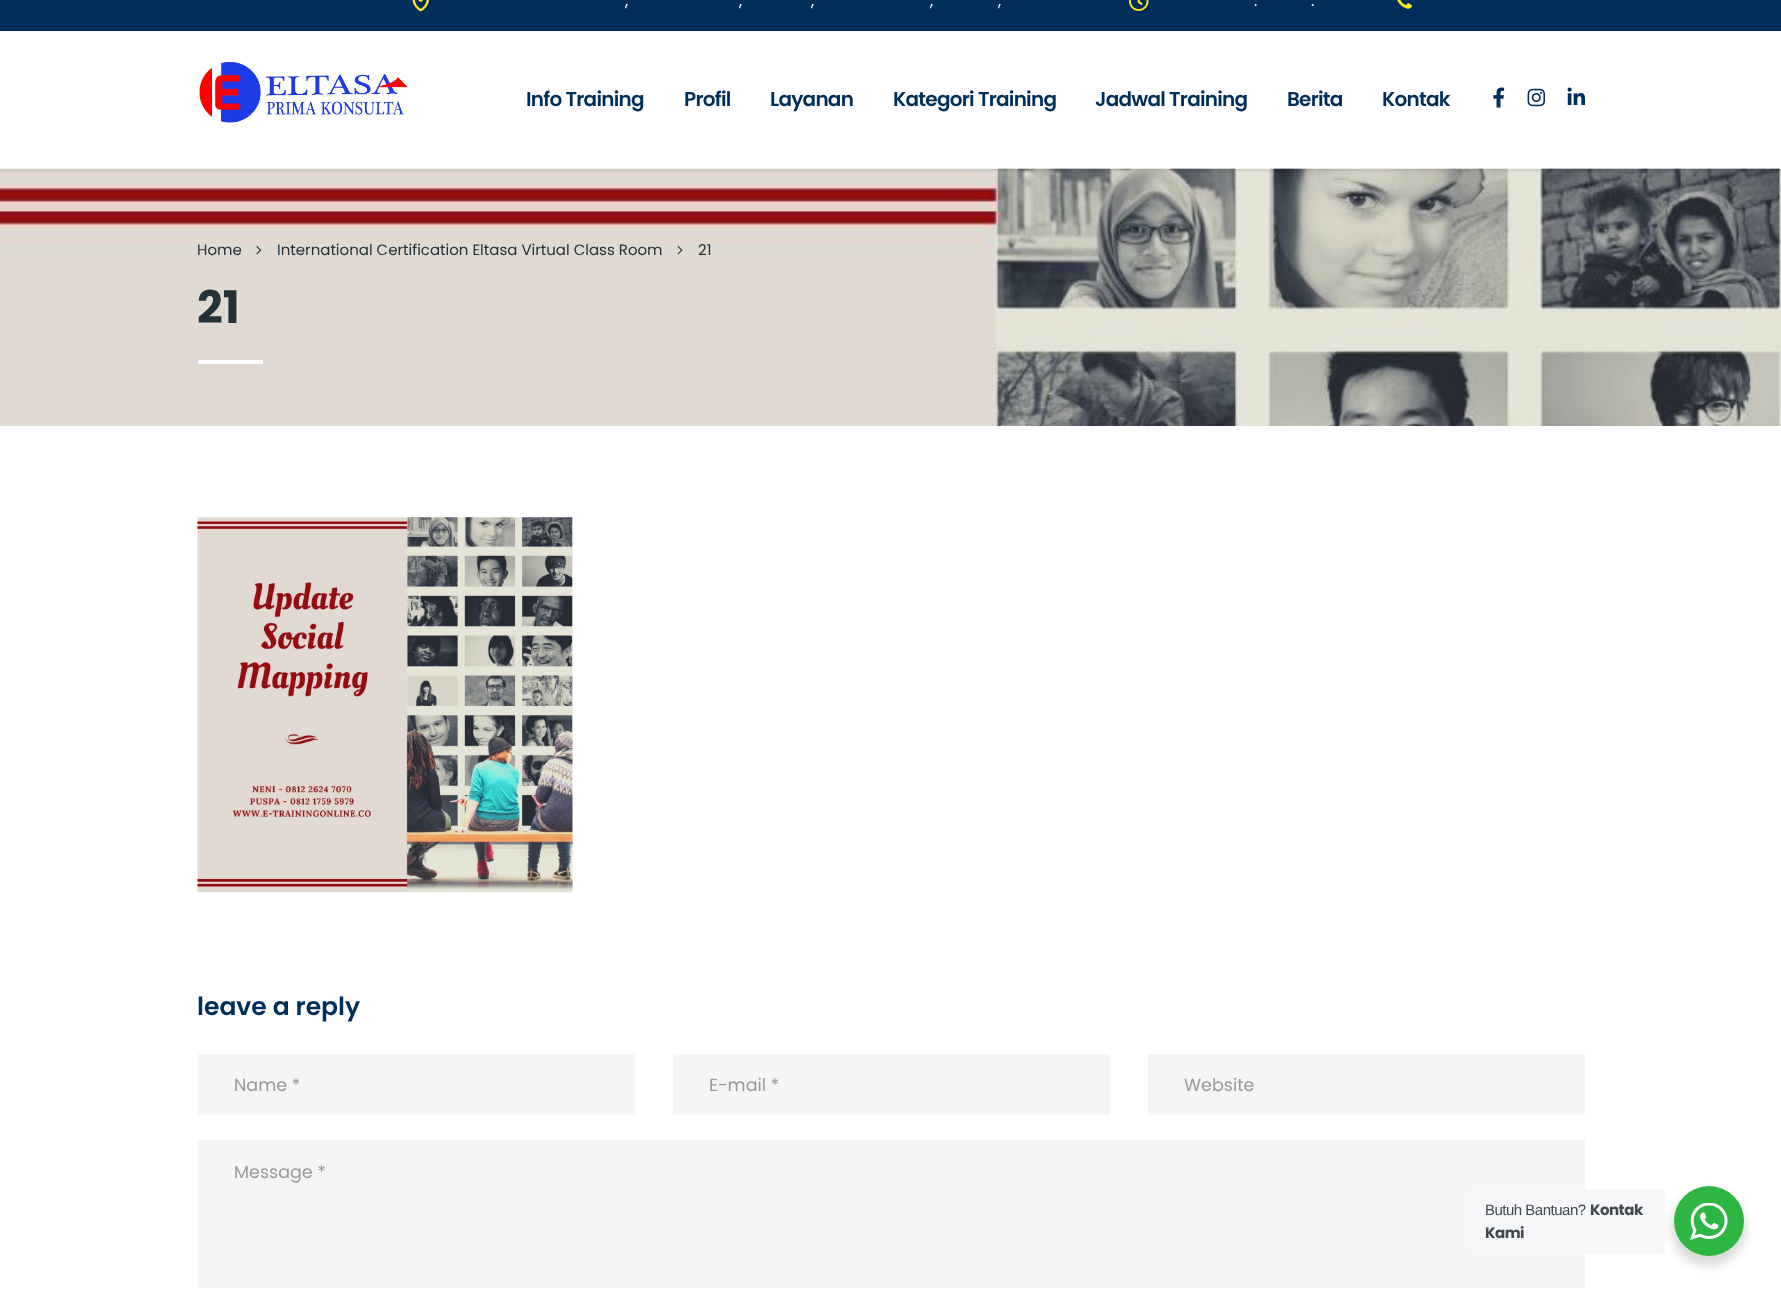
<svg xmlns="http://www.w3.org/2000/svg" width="1781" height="1293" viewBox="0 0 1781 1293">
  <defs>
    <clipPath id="clip1"><path d="M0 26H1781V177H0ZM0 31H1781V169H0Z" clip-rule="evenodd"/></clipPath>
    <filter id="blur1" x="-50%" y="-200%" width="200%" height="500%"><feGaussianBlur stdDeviation="2"/></filter>
    <filter id="blur2" x="-50%" y="-200%" width="200%" height="500%"><feGaussianBlur stdDeviation="5"/></filter>
  </defs>
  <rect width="100%" height="100%" fill="#ffffff"/>
  <image x="0" y="168" width="1781" height="258" href="img8.png"/>
  <g clip-path="url(#clip1)">
    <rect x="0" y="33" width="1781" height="137" fill="#000000" fill-opacity="0.15" filter="url(#blur1)"/>
  </g>
  <rect x="0" y="0" width="1781" height="31" fill="#002e5b"/>
  <image x="412" y="0" width="17" height="12" href="img1.png"/>
  <text x="625" y="6" font-family="Poppins" font-size="16" fill="#ffffff">,</text>
  <text x="739" y="6" font-family="Poppins" font-size="16" fill="#ffffff">,</text>
  <text x="811" y="6" font-family="Poppins" font-size="16" fill="#ffffff">,</text>
  <text x="930" y="6" font-family="Poppins" font-size="16" fill="#ffffff">,</text>
  <text x="998" y="6" font-family="Poppins" font-size="16" fill="#ffffff">,</text>
  <image x="1129" y="0" width="20" height="11" href="img2.png"/>
  <text x="1254" y="6" font-family="Poppins" font-size="16" fill="#ffffff">.</text>
  <text x="1311" y="6" font-family="Poppins" font-size="16" fill="#ffffff">.</text>
  <image x="1397" y="0" width="15" height="9" href="img3.png"/>
  <rect x="0" y="168" width="1781" height="1" fill="#ffffff" fill-opacity="0.3"/>
  <image x="199" y="60" width="209" height="63" href="img4.png"/>
  <text x="526" y="106" font-family="Poppins" font-size="20" font-weight="600" letter-spacing="-0.75" fill="#002e5b">Info Training</text>
  <text x="684" y="106" font-family="Poppins" font-size="20" font-weight="600" letter-spacing="-0.75" fill="#002e5b">Profil</text>
  <text x="770" y="106" font-family="Poppins" font-size="20" font-weight="600" letter-spacing="-0.75" fill="#002e5b">Layanan</text>
  <text x="893" y="106" font-family="Poppins" font-size="20" font-weight="600" letter-spacing="-0.75" fill="#002e5b">Kategori Training</text>
  <text x="1095" y="106" font-family="Poppins" font-size="20" font-weight="600" letter-spacing="-0.75" fill="#002e5b">Jadwal Training</text>
  <text x="1287" y="106" font-family="Poppins" font-size="20" font-weight="600" letter-spacing="-0.75" fill="#002e5b">Berita</text>
  <text x="1382" y="106" font-family="Poppins" font-size="20" font-weight="600" letter-spacing="-0.75" fill="#002e5b">Kontak</text>
  <image x="1493" y="87" width="12" height="21" href="img5.png"/>
  <image x="1527" y="88" width="19" height="19" href="img6.png"/>
  <image x="1567" y="87" width="18" height="18" href="img7.png"/>
  <text x="197" y="255" font-family="Poppins" font-size="15" fill="#243238">Home</text>
  <image x="256" y="246" width="6" height="9" href="img9.png"/>
  <text x="277" y="255" font-family="Poppins" font-size="15" fill="#243238">International Certification Eltasa Virtual Class Room</text>
  <image x="677" y="246" width="6" height="9" href="img10.png"/>
  <text x="698" y="255" font-family="Poppins" font-size="15" fill="#243238">21</text>
  <text x="197" y="323" font-family="Poppins" font-size="45" font-weight="bold" fill="#243238">21</text>
  <rect x="198" y="360" width="65" height="4" fill="#ffffff"/>
  <image x="197" y="517" width="376" height="376" href="img11.png"/>
  <text x="197" y="1015" font-family="Poppins" font-size="25" font-weight="600" fill="#002e5b">leave a reply</text>
  <rect x="198" y="1054" width="437" height="61" fill="#f5f5f5"/>
  <text x="234" y="1091" font-family="Poppins" font-size="17.5" fill="#999999">Name *</text>
  <rect x="673" y="1054" width="437" height="61" fill="#f5f5f5"/>
  <text x="709" y="1091" font-family="Poppins" font-size="17.5" fill="#999999">E-mail *</text>
  <rect x="1148" y="1054" width="437" height="61" fill="#f5f5f5"/>
  <text x="1184" y="1091" font-family="Poppins" font-size="17.5" fill="#999999">Website</text>
  <rect x="198" y="1140" width="1387" height="148" fill="#f5f5f5"/>
  <text x="234" y="1178" font-family="Poppins" font-size="17.5" fill="#999999">Message *</text>
  <rect x="1671" y="1191" width="75" height="75" rx="37.5" fill="#000000" fill-opacity="0.14" filter="url(#blur2)"/>
  <rect x="1470" y="1189" width="195" height="65" rx="5" fill="#f5f7f9"/>
  <text x="1485" y="1215" font-family="Liberation Sans" font-size="15" letter-spacing="-0.5" fill="#43474e">Butuh Bantuan?</text>
  <text x="1590" y="1215" font-family="Poppins" font-size="15" font-weight="bold" letter-spacing="-0.5" fill="#43474e">Kontak</text>
  <text x="1485" y="1238" font-family="Poppins" font-size="15" font-weight="bold" letter-spacing="-0.5" fill="#43474e">Kami</text>
  <circle cx="1709" cy="1221" r="35" fill="#2db742"/>
  <image x="1690" y="1203" width="38" height="37" href="img12.png"/>
</svg>
